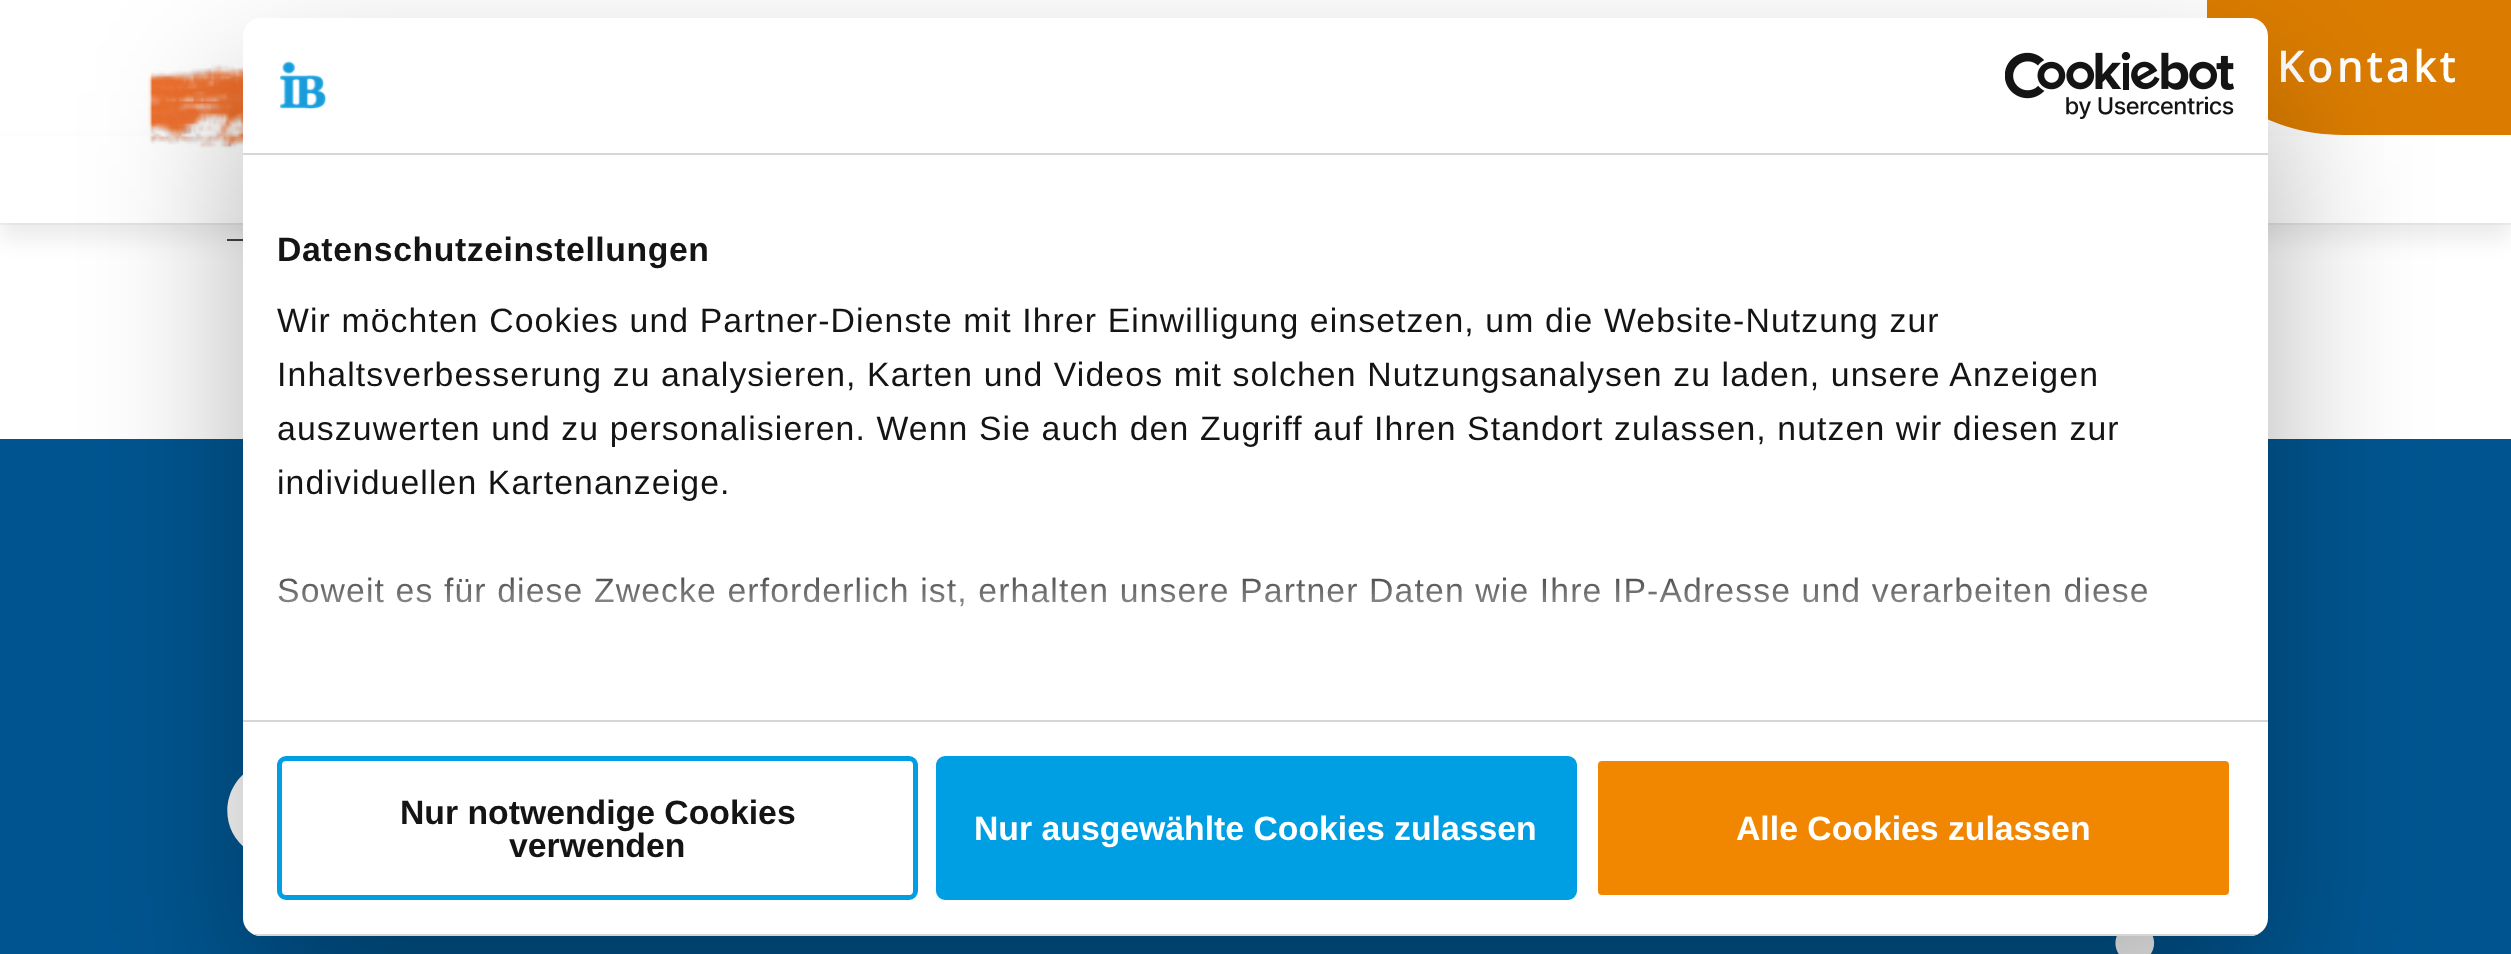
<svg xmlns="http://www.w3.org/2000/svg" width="2511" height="954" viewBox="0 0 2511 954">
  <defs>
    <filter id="blur1" x="-50%" y="-200%" width="200%" height="500%"><feGaussianBlur stdDeviation="11"/></filter>
    <filter id="blur2" x="-50%" y="-200%" width="200%" height="500%"><feGaussianBlur stdDeviation="76.5"/></filter>
    <linearGradient id="g1" gradientUnits="userSpaceOnUse" x1="1241" y1="720" x2="1241" y2="551"><stop offset="0" stop-color="#ffffff"/><stop offset="0.5" stop-color="#ffffff" stop-opacity="0.8"/><stop offset="1" stop-color="#ffffff" stop-opacity="0"/></linearGradient>
    <clipPath id="clip1"><rect x="243" y="18" width="2025" height="918" rx="18"/></clipPath>
  </defs>
  <rect width="100%" height="100%" fill="#ffffff"/>
  <rect x="0" y="223" width="2511" height="2" fill="#f5f5f5"/>
  <rect x="227" y="239" width="16" height="2" fill="#454545"/>
  <rect x="0" y="149" width="2511" height="90" fill="#000000" fill-opacity="0.08" filter="url(#blur1)"/>
  <rect x="0" y="136" width="2511" height="87" fill="#ffffff"/>
  <image x="148" y="64" width="95" height="85" href="img1.png"/>
  <path d="M2207 0H2511V135H2343C2268 135 2207 93 2207 40Z" fill="#db7c00"/>
  <text x="2277" y="82" font-family="Open Sans" font-size="42" font-weight="bold" letter-spacing="4.25" fill="#ffffff">Kontakt</text>
  <rect x="0" y="439" width="2511" height="515" fill="#005590"/>
  <path d="M276 762C228 762 209 824 249 851C257 856 266 859 276 859C285 859 295 856 303 851C342 824 323 762 276 762ZM288 794C279 794 280 794 280 802H288L287 810H280V839H268V810H259V802H268C268 783 268 782 288 782Z" fill="#ffffff"/>
  <image x="2115" y="936" width="40" height="18" href="img4.png"/>
  <rect x="243" y="90" width="2025" height="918" rx="18" fill="#000000" fill-opacity="0.3" filter="url(#blur2)"/>
  <rect x="243" y="18" width="2025" height="918" rx="18" fill="#ffffff"/>
  <rect x="243" y="153" width="2025" height="2" fill="#d6d6d6"/>
  <image x="280" y="61" width="47" height="49" href="img2.png"/>
  <image x="2005" y="52" width="229" height="67" href="img3.png"/>
  <rect x="243" y="720" width="2025" height="2" fill="#d6d6d6"/>
  <text x="277" y="261" font-family="Liberation Sans" font-size="33.75" font-weight="bold" letter-spacing="0.6" fill="#141414">Datenschutzeinstellungen</text>
  <text x="277" y="332" font-family="Liberation Sans" font-size="33.75" letter-spacing="1.12" fill="#141414">Wir möchten Cookies und Partner-Dienste mit Ihrer Einwilligung einsetzen, um die Website-Nutzung zur</text>
  <text x="277" y="386" font-family="Liberation Sans" font-size="33.75" letter-spacing="1.12" fill="#141414">Inhaltsverbesserung zu analysieren, Karten und Videos mit solchen Nutzungsanalysen zu laden, unsere Anzeigen</text>
  <text x="277" y="440" font-family="Liberation Sans" font-size="33.75" letter-spacing="1.12" fill="#141414">auszuwerten und zu personalisieren. Wenn Sie auch den Zugriff auf Ihren Standort zulassen, nutzen wir diesen zur</text>
  <text x="277" y="494" font-family="Liberation Sans" font-size="33.75" letter-spacing="1.12" fill="#141414">individuellen Kartenanzeige.</text>
  <text x="277" y="602" font-family="Liberation Sans" font-size="33.75" letter-spacing="1.12" fill="#141414">Soweit es für diese Zwecke erforderlich ist, erhalten unsere Partner Daten wie Ihre IP-Adresse und verarbeiten diese</text>
  <rect x="278" y="577" width="1870" height="30" fill="url(#g1)"/>
  <g clip-path="url(#clip1)">
    <rect x="253" y="934" width="2005" height="2" fill="#d6d6d6"/>
  </g>
  <rect x="279.5" y="758.5" width="636" height="139" rx="6.5" fill="none" stroke="#009fe3" stroke-width="5"/>
  <text x="400" y="824" font-family="Liberation Sans" font-size="33.75" font-weight="bold" fill="#141414">Nur notwendige Cookies</text>
  <text x="509" y="857" font-family="Liberation Sans" font-size="33.75" font-weight="bold" fill="#141414">verwenden</text>
  <rect x="938.5" y="758.5" width="636" height="139" rx="6.5" fill="#009fe3" stroke="#009fe3" stroke-width="5"/>
  <text x="974" y="840" font-family="Liberation Sans" font-size="33.75" font-weight="bold" fill="#ffffff">Nur ausgewählte Cookies zulassen</text>
  <rect x="1595.5" y="758.5" width="636" height="139" rx="6.5" fill="#f18700" stroke="#ffffff" stroke-width="5"/>
  <text x="1736" y="840" font-family="Liberation Sans" font-size="33.75" font-weight="bold" fill="#ffffff">Alle Cookies zulassen</text>
</svg>
